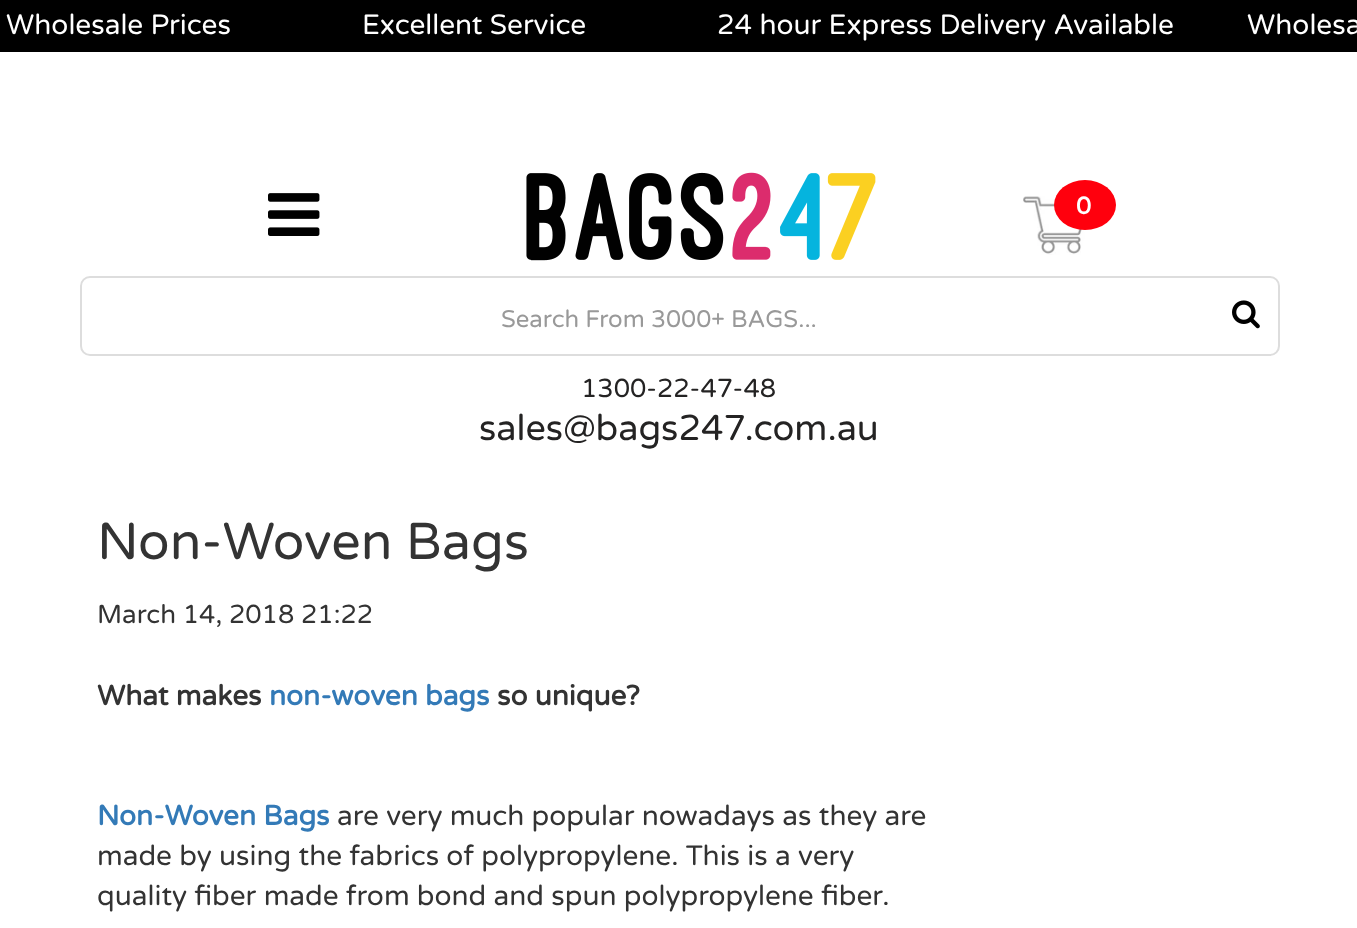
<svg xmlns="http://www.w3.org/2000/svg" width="1357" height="928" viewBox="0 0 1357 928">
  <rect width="100%" height="100%" fill="#ffffff"/>
  <rect x="0" y="0" width="1357" height="52" fill="#000000"/>
  <text x="6" y="34" font-family="Varela Round" font-size="28" fill="#ffffff">Wholesale Prices</text>
  <text x="362" y="34" font-family="Varela Round" font-size="28" fill="#ffffff">Excellent Service</text>
  <text x="717" y="34" font-family="Varela Round" font-size="28" fill="#ffffff">24 hour Express Delivery Available</text>
  <text x="1247" y="34" font-family="Varela Round" font-size="28" fill="#ffffff">Wholesa</text>
  <image x="268" y="193" width="52" height="43" href="img1.png"/>
  <image x="526" y="172" width="350" height="89" href="img2.png"/>
  <image x="1023" y="196" width="65" height="59" href="img3.png"/>
  <ellipse cx="1085" cy="205" rx="31" ry="25" fill="#ff000d"/>
  <text x="1076" y="214" font-family="Varela Round" font-size="24" font-weight="bold" fill="#ffffff">0</text>
  <rect x="81" y="277" width="1198" height="78" rx="9" fill="none" stroke="#dddddd" stroke-width="2"/>
  <text x="501" y="327" font-family="Varela Round" font-size="24" fill="#999999">Search From 3000+ BAGS...</text>
  <image x="1232" y="300" width="28" height="29" href="img4.png"/>
  <text x="581" y="397" font-family="Varela Round" font-size="26" fill="#242323">1300-22-47-48</text>
  <text x="479" y="440" font-family="Varela Round" font-size="36" fill="#242323">sales@bags247.com.au</text>
  <text x="97" y="559" font-family="Varela Round" font-size="52" fill="#333333">Non-Woven Bags</text>
  <text x="97" y="623" font-family="Varela Round" font-size="26" fill="#333333">March 14, 2018 21:22</text>
  <text x="97" y="705" font-family="Varela Round" font-size="28" font-weight="bold" fill="#333333">What makes</text>
  <text x="269" y="705" font-family="Varela Round" font-size="28" font-weight="bold" fill="#337ab7">non-woven bags</text>
  <text x="497" y="705" font-family="Varela Round" font-size="28" font-weight="bold" fill="#333333">so unique?</text>
  <text x="97" y="825" font-family="Varela Round" font-size="28" font-weight="bold" fill="#337ab7">Non-Woven Bags</text>
  <text x="337" y="825" font-family="Varela Round" font-size="28" fill="#333333">are very much popular nowadays as they are</text>
  <text x="97" y="865" font-family="Varela Round" font-size="28" fill="#333333">made by using the fabrics of polypropylene. This is a very</text>
  <text x="97" y="905" font-family="Varela Round" font-size="28" fill="#333333">quality fiber made from bond and spun polypropylene fiber.</text>
</svg>
